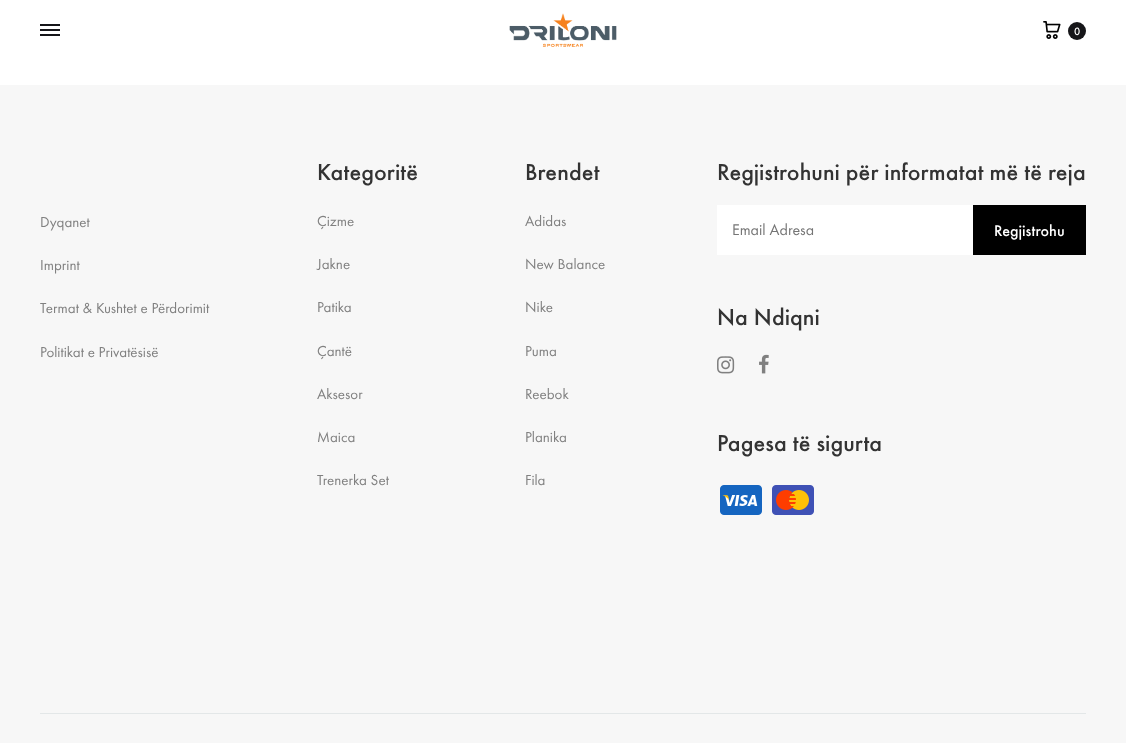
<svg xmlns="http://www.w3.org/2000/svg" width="1126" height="743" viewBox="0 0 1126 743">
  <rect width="100%" height="100%" fill="#ffffff"/>
  <rect x="40" y="29" width="20" height="2" fill="#161619"/>
  <rect x="40" y="24" width="20" height="2" fill="#161619"/>
  <rect x="40" y="34" width="20" height="2" fill="#161619"/>
  <image x="509" y="13" width="108" height="34" href="img1.png"/>
  <image x="1043" y="21" width="18" height="18" href="img2.png"/>
  <circle cx="1077" cy="31" r="9" fill="#161619"/>
  <text x="1074" y="35" font-family="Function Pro" font-size="11" font-weight="500" fill="#ffffff">0</text>
  <rect x="0" y="85" width="1126" height="658" fill="#f7f7f7"/>
  <text x="40" y="227" font-family="Function Pro" font-size="15" fill="#808080">Dyqanet</text>
  <text x="40" y="270" font-family="Function Pro" font-size="15" fill="#808080">Imprint</text>
  <text x="40" y="313" font-family="Function Pro" font-size="15" fill="#808080">Termat &amp; Kushtet e Përdorimit</text>
  <text x="40" y="357" font-family="Function Pro" font-size="15" fill="#808080">Politikat e Privatësisë</text>
  <text x="317" y="180" font-family="Function Pro" font-size="24" font-weight="500" fill="#333333">Kategoritë</text>
  <text x="317" y="226" font-family="Function Pro" font-size="15" fill="#808080">Çizme</text>
  <text x="317" y="269" font-family="Function Pro" font-size="15" fill="#808080">Jakne</text>
  <text x="317" y="312" font-family="Function Pro" font-size="15" fill="#808080">Patika</text>
  <text x="317" y="356" font-family="Function Pro" font-size="15" fill="#808080">Çantë</text>
  <text x="317" y="399" font-family="Function Pro" font-size="15" fill="#808080">Aksesor</text>
  <text x="317" y="442" font-family="Function Pro" font-size="15" fill="#808080">Maica</text>
  <text x="317" y="485" font-family="Function Pro" font-size="15" fill="#808080">Trenerka Set</text>
  <text x="525" y="180" font-family="Function Pro" font-size="24" font-weight="500" fill="#333333">Brendet</text>
  <text x="525" y="226" font-family="Function Pro" font-size="15" fill="#808080">Adidas</text>
  <text x="525" y="269" font-family="Function Pro" font-size="15" fill="#808080">New Balance</text>
  <text x="525" y="312" font-family="Function Pro" font-size="15" fill="#808080">Nike</text>
  <text x="525" y="356" font-family="Function Pro" font-size="15" fill="#808080">Puma</text>
  <text x="525" y="399" font-family="Function Pro" font-size="15" fill="#808080">Reebok</text>
  <text x="525" y="442" font-family="Function Pro" font-size="15" fill="#808080">Planika</text>
  <text x="525" y="485" font-family="Function Pro" font-size="15" fill="#808080">Fila</text>
  <text x="717" y="180" font-family="Function Pro" font-size="24" font-weight="500" fill="#333333">Regjistrohuni për informatat më të reja</text>
  <rect x="717" y="205" width="256" height="50" fill="#ffffff"/>
  <text x="732" y="235" font-family="Function Pro" font-size="16" fill="#757575">Email Adresa</text>
  <rect x="973" y="205" width="113" height="50" fill="#000000"/>
  <text x="994" y="236" font-family="Function Pro" font-size="16" font-weight="500" fill="#ffffff">Regjistrohu</text>
  <text x="717" y="325" font-family="Function Pro" font-size="24" font-weight="500" fill="#333333">Na Ndiqni</text>
  <image x="717" y="356" width="18" height="18" href="img3.png"/>
  <image x="759" y="354" width="10" height="20" href="img4.png"/>
  <text x="717" y="451" font-family="Function Pro" font-size="24" font-weight="500" fill="#333333">Pagesa të sigurta</text>
  <image x="720" y="485" width="42" height="30" href="img5.png"/>
  <image x="772" y="485" width="42" height="30" href="img6.png"/>
  <rect x="40" y="713" width="1046" height="1" fill="#e3e7e8"/>
</svg>
